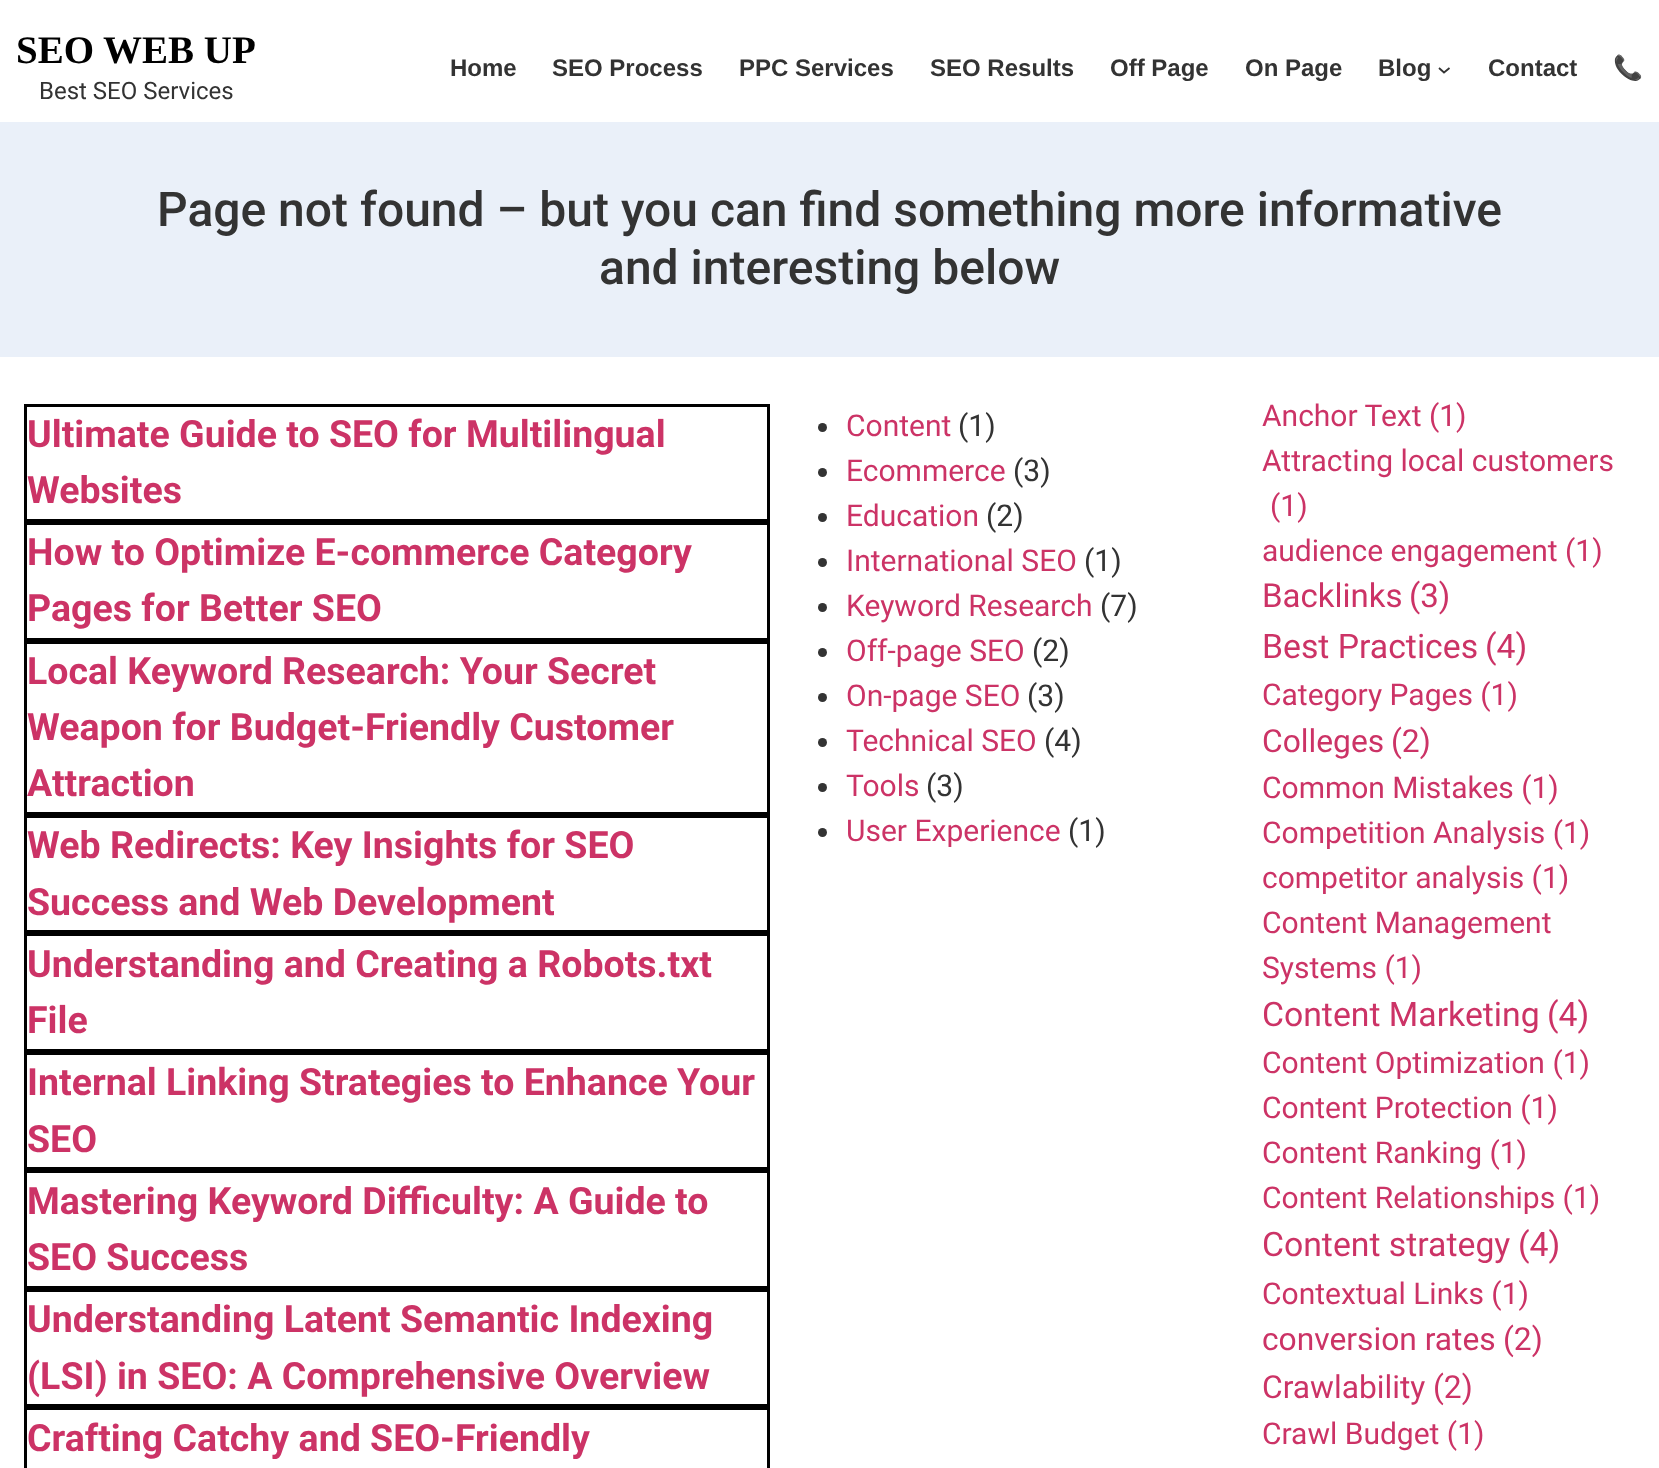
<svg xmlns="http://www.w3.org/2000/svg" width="1659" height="1468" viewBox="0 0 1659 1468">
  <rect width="100%" height="100%" fill="#ffffff"/>
  <text x="16" y="63" font-family="Liberation Serif" font-size="39" font-weight="bold" fill="#000000">SEO WEB UP</text>
  <text x="39" y="99" font-family="Roboto" font-size="24" fill="#333333">Best SEO Services</text>
  <text x="450" y="76" font-family="Liberation Sans" font-size="24" font-weight="bold" fill="#333333">Home</text>
  <text x="552" y="76" font-family="Liberation Sans" font-size="24" font-weight="bold" fill="#333333">SEO Process</text>
  <text x="739" y="76" font-family="Liberation Sans" font-size="24" font-weight="bold" fill="#333333">PPC Services</text>
  <text x="930" y="76" font-family="Liberation Sans" font-size="24" font-weight="bold" fill="#333333">SEO Results</text>
  <text x="1110" y="76" font-family="Liberation Sans" font-size="24" font-weight="bold" fill="#333333">Off Page</text>
  <text x="1245" y="76" font-family="Liberation Sans" font-size="24" font-weight="bold" fill="#333333">On Page</text>
  <text x="1378" y="76" font-family="Liberation Sans" font-size="24" font-weight="bold" fill="#333333">Blog</text>
  <path d="M1439 68L1444 72.5L1449.5 68" fill="none" stroke="#333333" stroke-width="1.8"/>
  <text x="1488" y="76" font-family="Liberation Sans" font-size="24" font-weight="bold" fill="#333333">Contact</text>
  <text x="1613" y="76" font-family="Noto Color Emoji" font-size="24" font-weight="bold" fill="#333333">📞</text>
  <rect x="0" y="122" width="1659" height="235" fill="#eaf0f9"/>
  <text x="157" y="226" font-family="Roboto" font-size="48" font-weight="500" fill="#333333">Page not found – but you can find something more informative</text>
  <text x="599" y="284" font-family="Roboto" font-size="48" font-weight="500" fill="#333333">and interesting below</text>
  <rect x="25.5" y="405.5" width="743" height="115" fill="none" stroke="#000000" stroke-width="3"/>
  <text x="27" y="447" font-family="Roboto" font-size="37.5" font-weight="bold" fill="#cc3366">Ultimate Guide to SEO for Multilingual</text>
  <text x="27" y="503" font-family="Roboto" font-size="37.5" font-weight="bold" fill="#cc3366">Websites</text>
  <rect x="25.5" y="523.5" width="743" height="116" fill="none" stroke="#000000" stroke-width="3"/>
  <text x="27" y="565" font-family="Roboto" font-size="37.5" font-weight="bold" fill="#cc3366">How to Optimize E-commerce Category</text>
  <text x="27" y="621" font-family="Roboto" font-size="37.5" font-weight="bold" fill="#cc3366">Pages for Better SEO</text>
  <rect x="25.5" y="642.5" width="743" height="171" fill="none" stroke="#000000" stroke-width="3"/>
  <text x="27" y="684" font-family="Roboto" font-size="37.5" font-weight="bold" fill="#cc3366">Local Keyword Research: Your Secret</text>
  <text x="27" y="740" font-family="Roboto" font-size="37.5" font-weight="bold" fill="#cc3366">Weapon for Budget-Friendly Customer</text>
  <text x="27" y="796" font-family="Roboto" font-size="37.5" font-weight="bold" fill="#cc3366">Attraction</text>
  <rect x="25.5" y="816.5" width="743" height="115" fill="none" stroke="#000000" stroke-width="3"/>
  <text x="27" y="858" font-family="Roboto" font-size="37.5" font-weight="bold" fill="#cc3366">Web Redirects: Key Insights for SEO</text>
  <text x="27" y="915" font-family="Roboto" font-size="37.5" font-weight="bold" fill="#cc3366">Success and Web Development</text>
  <rect x="25.5" y="934.5" width="743" height="116" fill="none" stroke="#000000" stroke-width="3"/>
  <text x="27" y="977" font-family="Roboto" font-size="37.5" font-weight="bold" fill="#cc3366">Understanding and Creating a Robots.txt</text>
  <text x="27" y="1033" font-family="Roboto" font-size="37.5" font-weight="bold" fill="#cc3366">File</text>
  <rect x="25.5" y="1053.5" width="743" height="115" fill="none" stroke="#000000" stroke-width="3"/>
  <text x="27" y="1095" font-family="Roboto" font-size="37.5" font-weight="bold" fill="#cc3366">Internal Linking Strategies to Enhance Your</text>
  <text x="27" y="1152" font-family="Roboto" font-size="37.5" font-weight="bold" fill="#cc3366">SEO</text>
  <rect x="25.5" y="1171.5" width="743" height="116" fill="none" stroke="#000000" stroke-width="3"/>
  <text x="27" y="1214" font-family="Roboto" font-size="37.5" font-weight="bold" fill="#cc3366">Mastering Keyword Difficulty: A Guide to</text>
  <text x="27" y="1270" font-family="Roboto" font-size="37.5" font-weight="bold" fill="#cc3366">SEO Success</text>
  <rect x="25.5" y="1290.5" width="743" height="115" fill="none" stroke="#000000" stroke-width="3"/>
  <text x="27" y="1332" font-family="Roboto" font-size="37.5" font-weight="bold" fill="#cc3366">Understanding Latent Semantic Indexing</text>
  <text x="27" y="1389" font-family="Roboto" font-size="37.5" font-weight="bold" fill="#cc3366">(LSI) in SEO: A Comprehensive Overview</text>
  <rect x="25.5" y="1408.5" width="743" height="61" fill="none" stroke="#000000" stroke-width="3"/>
  <text x="27" y="1451" font-family="Roboto" font-size="37.5" font-weight="bold" fill="#cc3366">Crafting Catchy and SEO-Friendly</text>
  <circle cx="822.5" cy="427.5" r="4.5" fill="#333333"/>
  <text x="846" y="436" font-family="Roboto" font-size="30" fill="#cc3366">Content</text>
  <text x="958" y="436" font-family="Roboto" font-size="30" fill="#333333">(1)</text>
  <circle cx="822.5" cy="472.5" r="4.5" fill="#333333"/>
  <text x="846" y="481" font-family="Roboto" font-size="30" fill="#cc3366">Ecommerce</text>
  <text x="1013" y="481" font-family="Roboto" font-size="30" fill="#333333">(3)</text>
  <circle cx="822.5" cy="517.5" r="4.5" fill="#333333"/>
  <text x="846" y="526" font-family="Roboto" font-size="30" fill="#cc3366">Education</text>
  <text x="986" y="526" font-family="Roboto" font-size="30" fill="#333333">(2)</text>
  <circle cx="822.5" cy="562.5" r="4.5" fill="#333333"/>
  <text x="846" y="571" font-family="Roboto" font-size="30" fill="#cc3366">International SEO</text>
  <text x="1084" y="571" font-family="Roboto" font-size="30" fill="#333333">(1)</text>
  <circle cx="822.5" cy="607.5" r="4.5" fill="#333333"/>
  <text x="846" y="616" font-family="Roboto" font-size="30" fill="#cc3366">Keyword Research</text>
  <text x="1100" y="616" font-family="Roboto" font-size="30" fill="#333333">(7)</text>
  <circle cx="822.5" cy="652.5" r="4.5" fill="#333333"/>
  <text x="846" y="661" font-family="Roboto" font-size="30" fill="#cc3366">Off-page SEO</text>
  <text x="1032" y="661" font-family="Roboto" font-size="30" fill="#333333">(2)</text>
  <circle cx="822.5" cy="697.5" r="4.5" fill="#333333"/>
  <text x="846" y="706" font-family="Roboto" font-size="30" fill="#cc3366">On-page SEO</text>
  <text x="1027" y="706" font-family="Roboto" font-size="30" fill="#333333">(3)</text>
  <circle cx="822.5" cy="742.5" r="4.5" fill="#333333"/>
  <text x="846" y="751" font-family="Roboto" font-size="30" fill="#cc3366">Technical SEO</text>
  <text x="1044" y="751" font-family="Roboto" font-size="30" fill="#333333">(4)</text>
  <circle cx="822.5" cy="787.5" r="4.5" fill="#333333"/>
  <text x="846" y="796" font-family="Roboto" font-size="30" fill="#cc3366">Tools</text>
  <text x="926" y="796" font-family="Roboto" font-size="30" fill="#333333">(3)</text>
  <circle cx="822.5" cy="832.5" r="4.5" fill="#333333"/>
  <text x="846" y="841" font-family="Roboto" font-size="30" fill="#cc3366">User Experience</text>
  <text x="1068" y="841" font-family="Roboto" font-size="30" fill="#333333">(1)</text>
  <text x="1262" y="426" font-family="Roboto" font-size="30" fill="#cc3366">Anchor Text (1)</text>
  <text x="1262" y="471" font-family="Roboto" font-size="30" fill="#cc3366">Attracting local customers</text>
  <text x="1270" y="516" font-family="Roboto" font-size="30" fill="#cc3366">(1)</text>
  <text x="1262" y="561" font-family="Roboto" font-size="30" fill="#cc3366">audience engagement (1)</text>
  <text x="1262" y="607" font-family="Roboto" font-size="33" fill="#cc3366">Backlinks</text>
  <text x="1409" y="607" font-family="Roboto" font-size="33" fill="#cc3366">(3)</text>
  <text x="1262" y="658" font-family="Roboto" font-size="33.75" fill="#cc3366">Best Practices</text>
  <text x="1485" y="658" font-family="Roboto" font-size="33.75" fill="#cc3366">(4)</text>
  <text x="1262" y="705" font-family="Roboto" font-size="30" fill="#cc3366">Category Pages (1)</text>
  <text x="1262" y="752" font-family="Roboto" font-size="31.75" fill="#cc3366">Colleges</text>
  <text x="1391" y="752" font-family="Roboto" font-size="31.75" fill="#cc3366">(2)</text>
  <text x="1262" y="798" font-family="Roboto" font-size="30" fill="#cc3366">Common Mistakes (1)</text>
  <text x="1262" y="843" font-family="Roboto" font-size="30" fill="#cc3366">Competition Analysis (1)</text>
  <text x="1262" y="888" font-family="Roboto" font-size="30" fill="#cc3366">competitor analysis (1)</text>
  <text x="1262" y="933" font-family="Roboto" font-size="30" fill="#cc3366">Content Management</text>
  <text x="1262" y="978" font-family="Roboto" font-size="30" fill="#cc3366">Systems (1)</text>
  <text x="1262" y="1026" font-family="Roboto" font-size="33.75" fill="#cc3366">Content Marketing</text>
  <text x="1547" y="1026" font-family="Roboto" font-size="33.75" fill="#cc3366">(4)</text>
  <text x="1262" y="1073" font-family="Roboto" font-size="30" fill="#cc3366">Content Optimization (1)</text>
  <text x="1262" y="1118" font-family="Roboto" font-size="30" fill="#cc3366">Content Protection (1)</text>
  <text x="1262" y="1163" font-family="Roboto" font-size="30" fill="#cc3366">Content Ranking (1)</text>
  <text x="1262" y="1208" font-family="Roboto" font-size="30" fill="#cc3366">Content Relationships (1)</text>
  <text x="1262" y="1256" font-family="Roboto" font-size="33.75" fill="#cc3366">Content strategy</text>
  <text x="1518" y="1256" font-family="Roboto" font-size="33.75" fill="#cc3366">(4)</text>
  <text x="1262" y="1304" font-family="Roboto" font-size="30" fill="#cc3366">Contextual Links (1)</text>
  <text x="1262" y="1350" font-family="Roboto" font-size="31.75" fill="#cc3366">conversion rates</text>
  <text x="1503" y="1350" font-family="Roboto" font-size="31.75" fill="#cc3366">(2)</text>
  <text x="1262" y="1398" font-family="Roboto" font-size="31.75" fill="#cc3366">Crawlability</text>
  <text x="1433" y="1398" font-family="Roboto" font-size="31.75" fill="#cc3366">(2)</text>
  <text x="1262" y="1444" font-family="Roboto" font-size="30" fill="#cc3366">Crawl Budget (1)</text>
</svg>
